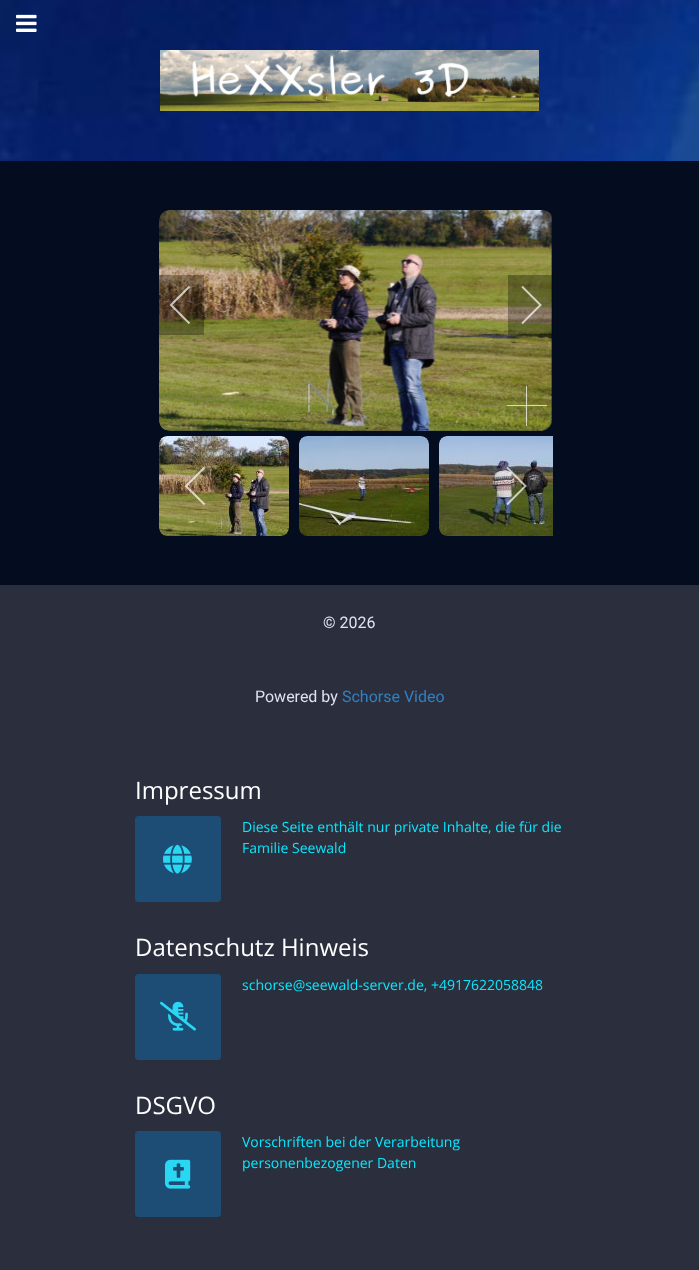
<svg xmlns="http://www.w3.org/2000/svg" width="699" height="1270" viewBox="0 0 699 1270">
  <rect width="100%" height="100%" fill="#040c1f"/>
  <image x="0" y="0" width="699" height="161" href="img1.png"/>
  <image x="160" y="50" width="379" height="61" href="img2.png"/>
  <image x="16" y="14" width="21" height="18" href="img3.png"/>
  <image x="159" y="210" width="393" height="221" href="img4.png"/>
  <rect x="526" y="386" width="1" height="40" fill="#ffffff" fill-opacity="0.7"/>
  <rect x="507" y="405" width="40" height="1" fill="#ffffff" fill-opacity="0.7"/>
  <rect x="159" y="275" width="45" height="60" fill="#000000" fill-opacity="0.3"/>
  <path d="M189.5 286.5L171 305L189.5 323.5" fill="none" stroke="#ffffff" stroke-opacity="0.7" stroke-width="2"/>
  <rect x="508" y="275" width="45" height="60" fill="#000000" fill-opacity="0.3"/>
  <path d="M522 323.5L540.5 305L522 286.5" fill="none" stroke="#ffffff" stroke-opacity="0.7" stroke-width="2"/>
  <image x="159" y="436" width="130" height="100" href="img5.png"/>
  <image x="299" y="436" width="130" height="100" href="img6.png"/>
  <image x="439" y="436" width="114" height="100" href="img7.png"/>
  <path d="M204.5 467.5L186 486L204.5 504.5" fill="none" stroke="#ffffff" stroke-opacity="0.7" stroke-width="2"/>
  <path d="M507 504.5L525.5 486L507 467.5" fill="none" stroke="#ffffff" stroke-opacity="0.7" stroke-width="2"/>
  <rect x="0" y="586" width="699" height="684" fill="#2b2f3d"/>
  <rect x="0" y="585" width="699" height="1" fill="#292d3a"/>
  <text x="323" y="628" font-family="Roboto" font-size="16" fill="#dfe1f5">© 2026</text>
  <text x="255" y="702" font-family="Roboto" font-size="16" fill="#dfe1f5">Powered by</text>
  <text x="342" y="702" font-family="Roboto" font-size="16" fill="#3180c2">Schorse Video</text>
  <text x="135" y="799" font-family="Open Sans" font-size="24" fill="#ffffff">Impressum</text>
  <rect x="135.5" y="816.5" width="85" height="85" rx="2.5" fill="#1d4c75" stroke="#1d4c75"/>
  <image x="163" y="844" width="29" height="30" href="img8.png"/>
  <text x="242" y="832" font-family="Open Sans" font-size="14" fill="#0ae7ff">Diese Seite enthält nur private Inhalte, die für die</text>
  <text x="242" y="853" font-family="Open Sans" font-size="14" fill="#0ae7ff">Familie Seewald</text>
  <text x="135" y="956" font-family="Open Sans" font-size="24" fill="#ffffff">Datenschutz Hinweis</text>
  <rect x="135.5" y="974.5" width="85" height="85" rx="2.5" fill="#1d4c75" stroke="#1d4c75"/>
  <image x="160" y="1001" width="36" height="30" href="img9.png"/>
  <text x="242" y="990" font-family="Open Sans" font-size="14" fill="#0ae7ff">schorse@seewald-server.de, +4917622058848</text>
  <text x="135" y="1114" font-family="Open Sans" font-size="24" fill="#ffffff">DSGVO</text>
  <rect x="135.5" y="1131.5" width="85" height="85" rx="2.5" fill="#1d4c75" stroke="#1d4c75"/>
  <image x="165" y="1159" width="26" height="30" href="img10.png"/>
  <text x="242" y="1147" font-family="Open Sans" font-size="14" fill="#0ae7ff">Vorschriften bei der Verarbeitung</text>
  <text x="242" y="1168" font-family="Open Sans" font-size="14" fill="#0ae7ff">personenbezogener Daten</text>
</svg>
